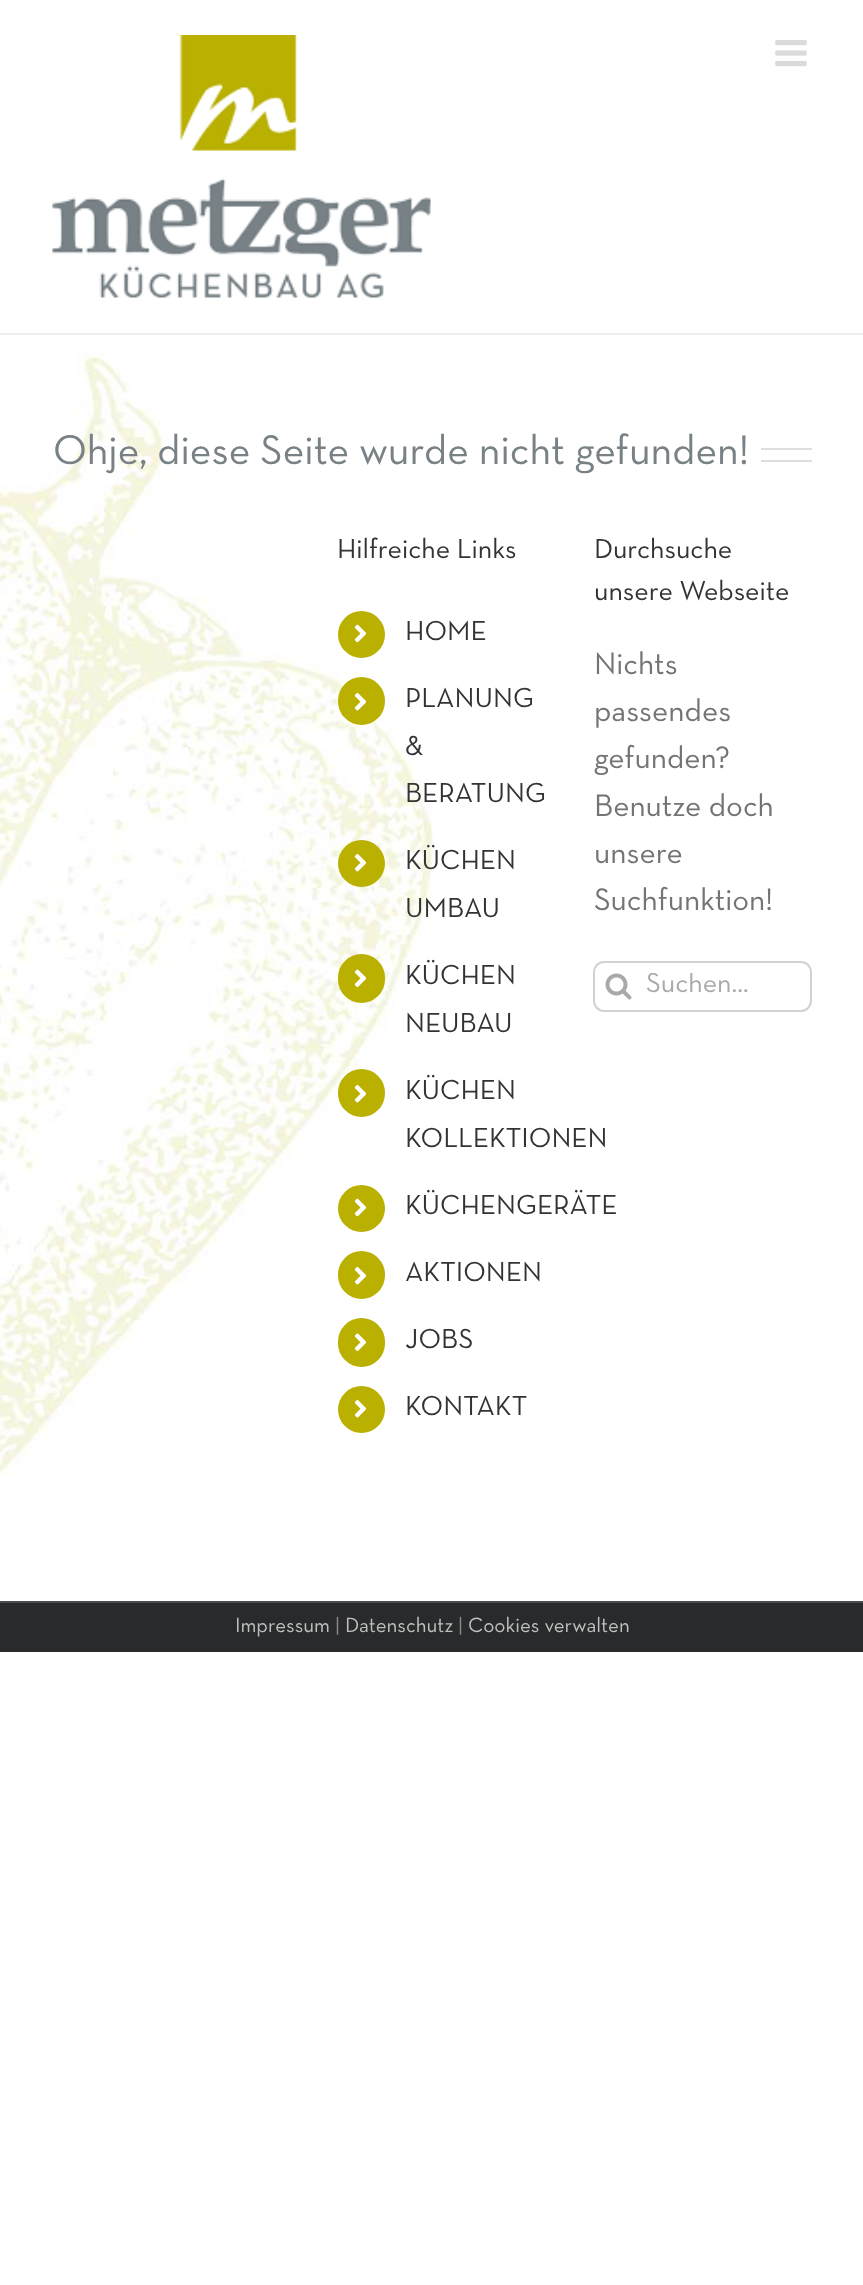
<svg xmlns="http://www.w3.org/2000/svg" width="863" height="2285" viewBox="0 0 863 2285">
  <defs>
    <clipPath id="clip1"><rect x="646" y="973" width="112" height="26"/></clipPath>
  </defs>
  <rect width="100%" height="100%" fill="#ffffff"/>
  <rect x="0" y="333" width="863" height="2" fill="#efefef"/>
  <image x="52" y="35" width="379" height="263" href="img1.png"/>
  <image x="775" y="40" width="32" height="27" href="img2.png"/>
  <image x="0" y="353" width="433" height="1123" href="img3.png"/>
  <text x="53" y="464" font-family="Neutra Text" font-size="42" fill="#778186">Ohje, diese Seite wurde nicht gefunden!</text>
  <rect x="761" y="448" width="51" height="2" fill="#e0dede"/>
  <rect x="761" y="460" width="51" height="2" fill="#e0dede"/>
  <text x="337" y="558" font-family="Neutra Text" font-size="28" fill="#333333">Hilfreiche Links</text>
  <circle cx="361.5" cy="634.5" r="23.5" fill="#b9b000"/>
  <image x="354" y="624" width="13" height="19" href="img4.png"/>
  <text x="405" y="640" font-family="Neutra Text" font-size="28" fill="#333333">HOME</text>
  <rect x="338" y="677" width="47" height="48" rx="23.5" fill="#b9b000"/>
  <image x="354" y="693" width="13" height="18" href="img5.png"/>
  <text x="405" y="707" font-family="Neutra Text" font-size="28" fill="#333333">PLANUNG</text>
  <text x="405" y="755" font-family="Neutra Text" font-size="28" fill="#333333">&amp;</text>
  <text x="405" y="802" font-family="Neutra Text" font-size="28" fill="#333333">BERATUNG</text>
  <circle cx="361.5" cy="863.5" r="23.5" fill="#b9b000"/>
  <image x="354" y="854" width="13" height="18" href="img5.png"/>
  <text x="405" y="869" font-family="Neutra Text" font-size="28" fill="#333333">KÜCHEN</text>
  <text x="405" y="917" font-family="Neutra Text" font-size="28" fill="#333333">UMBAU</text>
  <rect x="338" y="954" width="47" height="49" rx="23.5" fill="#b9b000"/>
  <image x="354" y="969" width="13" height="18" href="img6.png"/>
  <text x="405" y="984" font-family="Neutra Text" font-size="28" fill="#333333">KÜCHEN</text>
  <text x="405" y="1032" font-family="Neutra Text" font-size="28" fill="#333333">NEUBAU</text>
  <rect x="338" y="1069" width="47" height="48" rx="23.5" fill="#b9b000"/>
  <image x="354" y="1085" width="13" height="18" href="img5.png"/>
  <text x="405" y="1099" font-family="Neutra Text" font-size="28" fill="#333333">KÜCHEN</text>
  <text x="405" y="1147" font-family="Neutra Text" font-size="28" fill="#333333">KOLLEKTIONEN</text>
  <circle cx="361.5" cy="1208.5" r="23.5" fill="#b9b000"/>
  <image x="354" y="1198" width="13" height="19" href="img4.png"/>
  <text x="405" y="1214" font-family="Neutra Text" font-size="28" fill="#333333">KÜCHENGERÄTE</text>
  <rect x="338" y="1251" width="47" height="48" rx="23.5" fill="#b9b000"/>
  <image x="354" y="1267" width="13" height="18" href="img5.png"/>
  <text x="405" y="1281" font-family="Neutra Text" font-size="28" fill="#333333">AKTIONEN</text>
  <rect x="338" y="1318" width="47" height="49" rx="23.5" fill="#b9b000"/>
  <image x="354" y="1333" width="13" height="18" href="img6.png"/>
  <text x="405" y="1348" font-family="Neutra Text" font-size="28" fill="#333333">JOBS</text>
  <circle cx="361.5" cy="1409.5" r="23.5" fill="#b9b000"/>
  <image x="354" y="1400" width="13" height="18" href="img5.png"/>
  <text x="405" y="1415" font-family="Neutra Text" font-size="28" fill="#333333">KONTAKT</text>
  <text x="594" y="558" font-family="Neutra Text" font-size="28" fill="#333333">Durchsuche</text>
  <text x="594" y="600" font-family="Neutra Text" font-size="28" fill="#333333">unsere Webseite</text>
  <text x="594" y="674" font-family="Neutra Text" font-size="31.5" fill="#747474">Nichts</text>
  <text x="594" y="721" font-family="Neutra Text" font-size="31.5" fill="#747474">passendes</text>
  <text x="594" y="768" font-family="Neutra Text" font-size="31.5" fill="#747474">gefunden?</text>
  <text x="594" y="816" font-family="Neutra Text" font-size="31.5" fill="#747474">Benutze doch</text>
  <text x="594" y="863" font-family="Neutra Text" font-size="31.5" fill="#747474">unsere</text>
  <text x="594" y="910" font-family="Neutra Text" font-size="31.5" fill="#747474">Suchfunktion!</text>
  <rect x="594" y="962" width="217" height="49" rx="10" fill="none" stroke="#d2d2d2" stroke-width="2"/>
  <image x="605" y="973" width="27" height="27" href="img7.png"/>
  <g clip-path="url(#clip1)">
    <text x="646" y="992" font-family="Neutra Text" font-size="28" fill="#aaa9a9">Suchen...</text>
  </g>
  <rect x="0" y="1603" width="863" height="49" fill="#282a2b"/>
  <rect x="0" y="1601" width="863" height="2" fill="#4b4c4d"/>
  <text x="235" y="1632" font-family="Neutra Text" font-size="21" fill="#bfbfbf">Impressum</text>
  <text x="335" y="1632" font-family="Neutra Text" font-size="21" fill="#8c8989">|</text>
  <text x="345" y="1632" font-family="Neutra Text" font-size="21" fill="#bfbfbf">Datenschutz</text>
  <text x="458" y="1632" font-family="Neutra Text" font-size="21" fill="#8c8989">|</text>
  <text x="468" y="1632" font-family="Neutra Text" font-size="21" fill="#bfbfbf">Cookies verwalten</text>
</svg>
